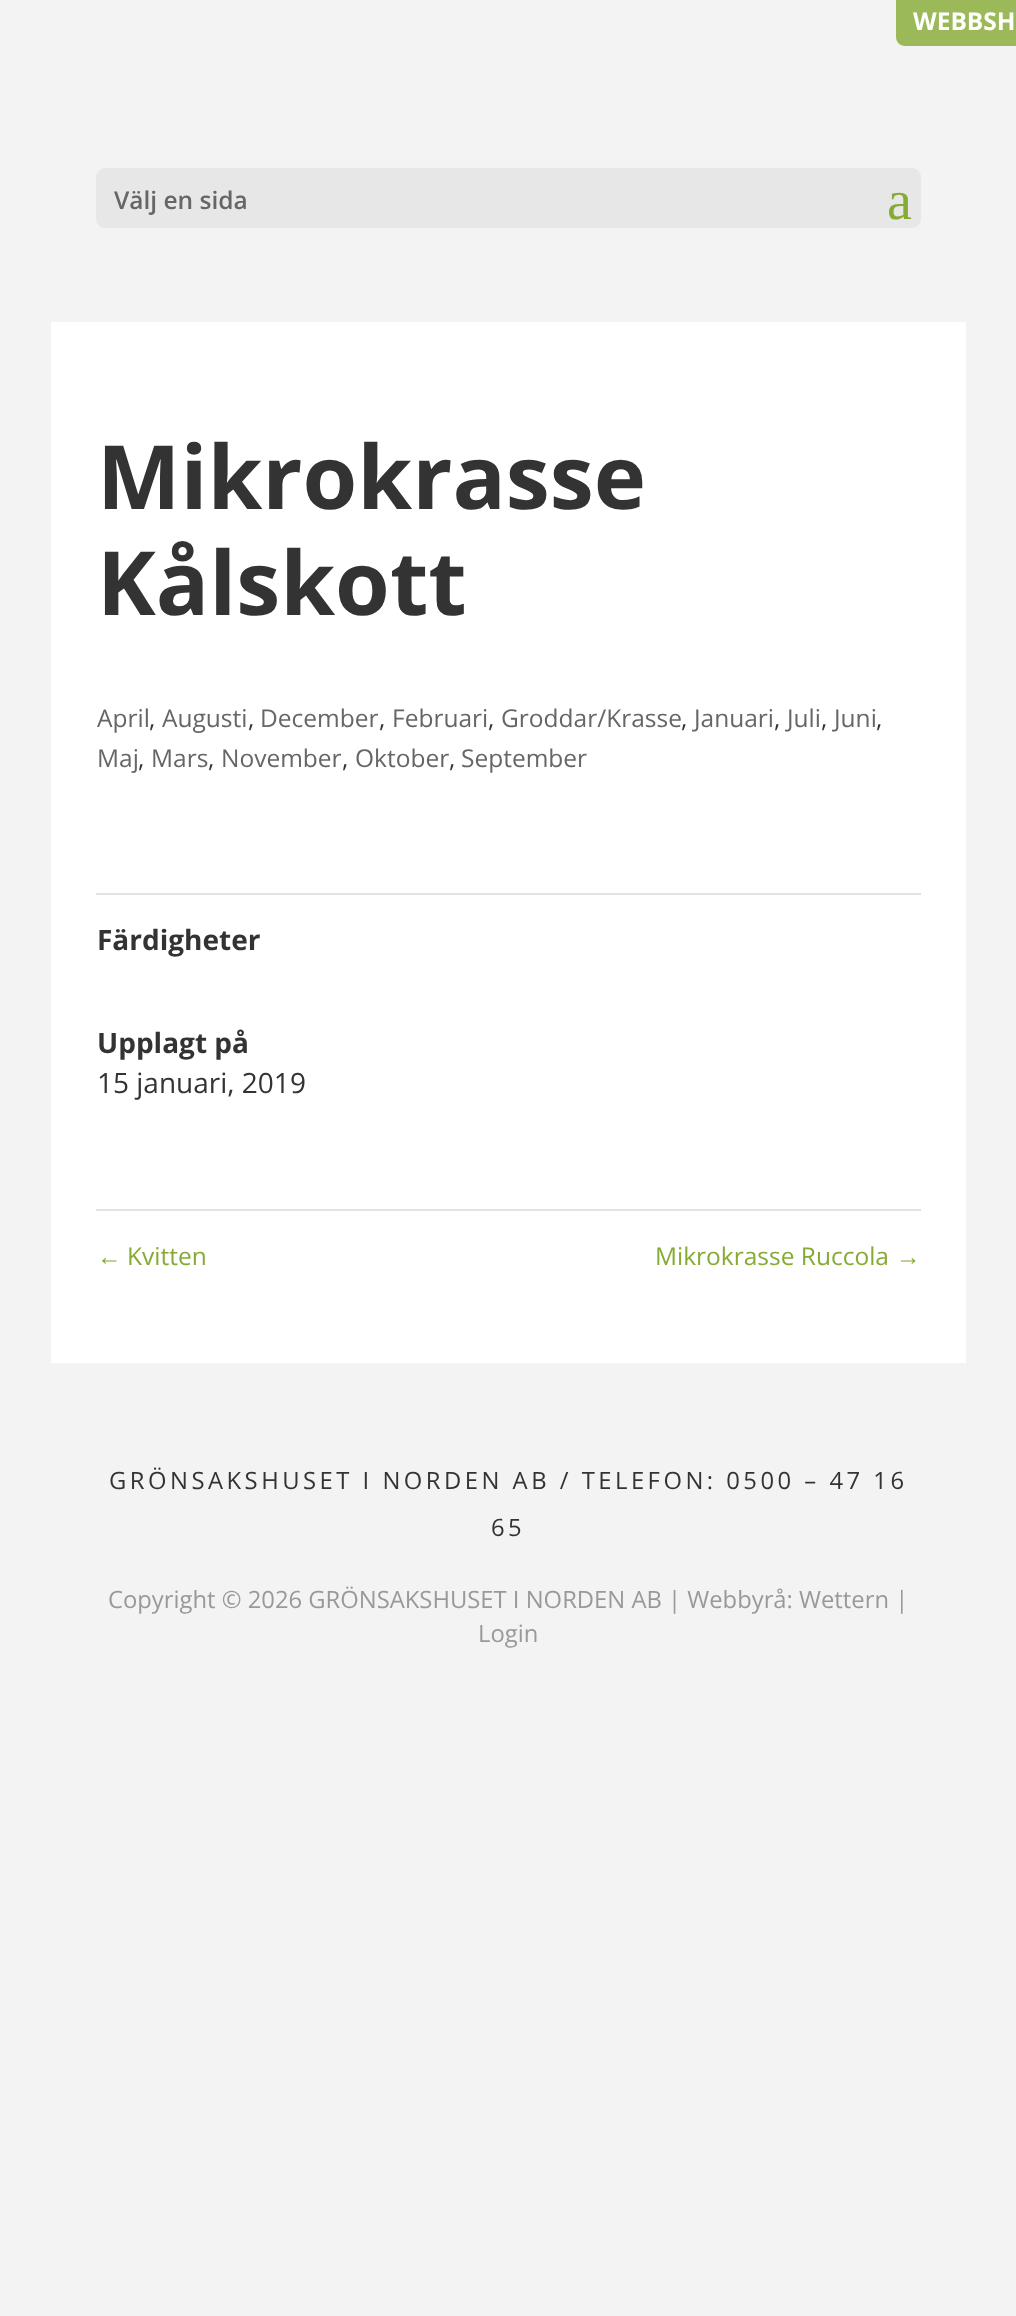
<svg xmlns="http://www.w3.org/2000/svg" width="1016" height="2316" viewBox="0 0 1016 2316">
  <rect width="100%" height="100%" fill="#f3f3f3"/>
  <path d="M896-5H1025V46H905C900 46 896 42 896 37Z" fill="#9cb959"/>
  <text x="913" y="30" font-family="Open Sans" font-size="24.5" font-weight="bold" fill="#ffffff">WEBBSH</text>
  <rect x="96" y="168" width="825" height="60" rx="9" fill="#e7e7e7"/>
  <text x="114" y="209" font-family="Open Sans" font-size="24.5" font-weight="600" fill="#666666">Välj en sida</text>
  <text x="887" y="219" font-family="Liberation Serif" font-size="56" fill="#86ab34">a</text>
  <rect x="51" y="322" width="915" height="1041" fill="#ffffff"/>
  <text x="97" y="509" font-family="Open Sans" font-size="88.5" font-weight="bold" fill="#333333">Mikrokrasse</text>
  <text x="97" y="615" font-family="Open Sans" font-size="88.5" font-weight="bold" fill="#333333">Kålskott</text>
  <text x="97" y="727" font-family="Open Sans" font-size="24.5" fill="#666666">April</text>
  <text x="149" y="727" font-family="Open Sans" font-size="24.5" fill="#333333">,</text>
  <text x="162" y="727" font-family="Open Sans" font-size="24.5" fill="#666666">Augusti</text>
  <text x="248" y="727" font-family="Open Sans" font-size="24.5" fill="#333333">,</text>
  <text x="260" y="727" font-family="Open Sans" font-size="24.5" fill="#666666">December</text>
  <text x="379" y="727" font-family="Open Sans" font-size="24.5" fill="#333333">,</text>
  <text x="392" y="727" font-family="Open Sans" font-size="24.5" fill="#666666">Februari</text>
  <text x="488" y="727" font-family="Open Sans" font-size="24.5" fill="#333333">,</text>
  <text x="501" y="727" font-family="Open Sans" font-size="24.5" fill="#666666">Groddar/Krasse</text>
  <text x="681" y="727" font-family="Open Sans" font-size="24.5" fill="#333333">,</text>
  <text x="694" y="727" font-family="Open Sans" font-size="24.5" fill="#666666">Januari</text>
  <text x="774" y="727" font-family="Open Sans" font-size="24.5" fill="#333333">,</text>
  <text x="787" y="727" font-family="Open Sans" font-size="24.5" fill="#666666">Juli</text>
  <text x="821" y="727" font-family="Open Sans" font-size="24.5" fill="#333333">,</text>
  <text x="834" y="727" font-family="Open Sans" font-size="24.5" fill="#666666">Juni</text>
  <text x="876" y="727" font-family="Open Sans" font-size="24.5" fill="#333333">,</text>
  <text x="97" y="767" font-family="Open Sans" font-size="24.5" fill="#666666">Maj</text>
  <text x="138" y="767" font-family="Open Sans" font-size="24.5" fill="#333333">,</text>
  <text x="151" y="767" font-family="Open Sans" font-size="24.5" fill="#666666">Mars</text>
  <text x="208" y="767" font-family="Open Sans" font-size="24.5" fill="#333333">,</text>
  <text x="221" y="767" font-family="Open Sans" font-size="24.5" fill="#666666">November</text>
  <text x="342" y="767" font-family="Open Sans" font-size="24.5" fill="#333333">,</text>
  <text x="355" y="767" font-family="Open Sans" font-size="24.5" fill="#666666">Oktober</text>
  <text x="449" y="767" font-family="Open Sans" font-size="24.5" fill="#333333">,</text>
  <text x="461" y="767" font-family="Open Sans" font-size="24.5" fill="#666666">September</text>
  <rect x="96" y="893" width="825" height="2" fill="#e2e2e2"/>
  <rect x="96" y="1209" width="825" height="2" fill="#e2e2e2"/>
  <text x="97" y="950" font-family="Open Sans" font-size="28" font-weight="bold" fill="#333333">Färdigheter</text>
  <text x="97" y="1053" font-family="Open Sans" font-size="28" font-weight="bold" fill="#333333">Upplagt på</text>
  <text x="97" y="1093" font-family="Open Sans" font-size="28" fill="#333333">15 januari, 2019</text>
  <text x="97" y="1265" font-family="Liberation Sans" font-size="24.5" fill="#86ab34">←</text>
  <text x="127" y="1265" font-family="Open Sans" font-size="24.5" fill="#86ab34">Kvitten</text>
  <text x="655" y="1265" font-family="Open Sans" font-size="24.5" fill="#86ab34">Mikrokrasse Ruccola</text>
  <text x="896" y="1265" font-family="Liberation Sans" font-size="24.5" fill="#86ab34">→</text>
  <text x="109" y="1489" font-family="Open Sans" font-size="23.8" letter-spacing="3.5" fill="#333333">GRÖNSAKSHUSET I NORDEN AB / TELEFON: 0500 – 47 16</text>
  <text x="491" y="1536" font-family="Open Sans" font-size="23.8" letter-spacing="3.5" fill="#333333">65</text>
  <text x="108" y="1608" font-family="Open Sans" font-size="23.8" fill="#999999">Copyright © 2026 GRÖNSAKSHUSET I NORDEN AB | Webbyrå: Wettern |</text>
  <text x="478" y="1642" font-family="Open Sans" font-size="23.8" fill="#999999">Login</text>
</svg>
